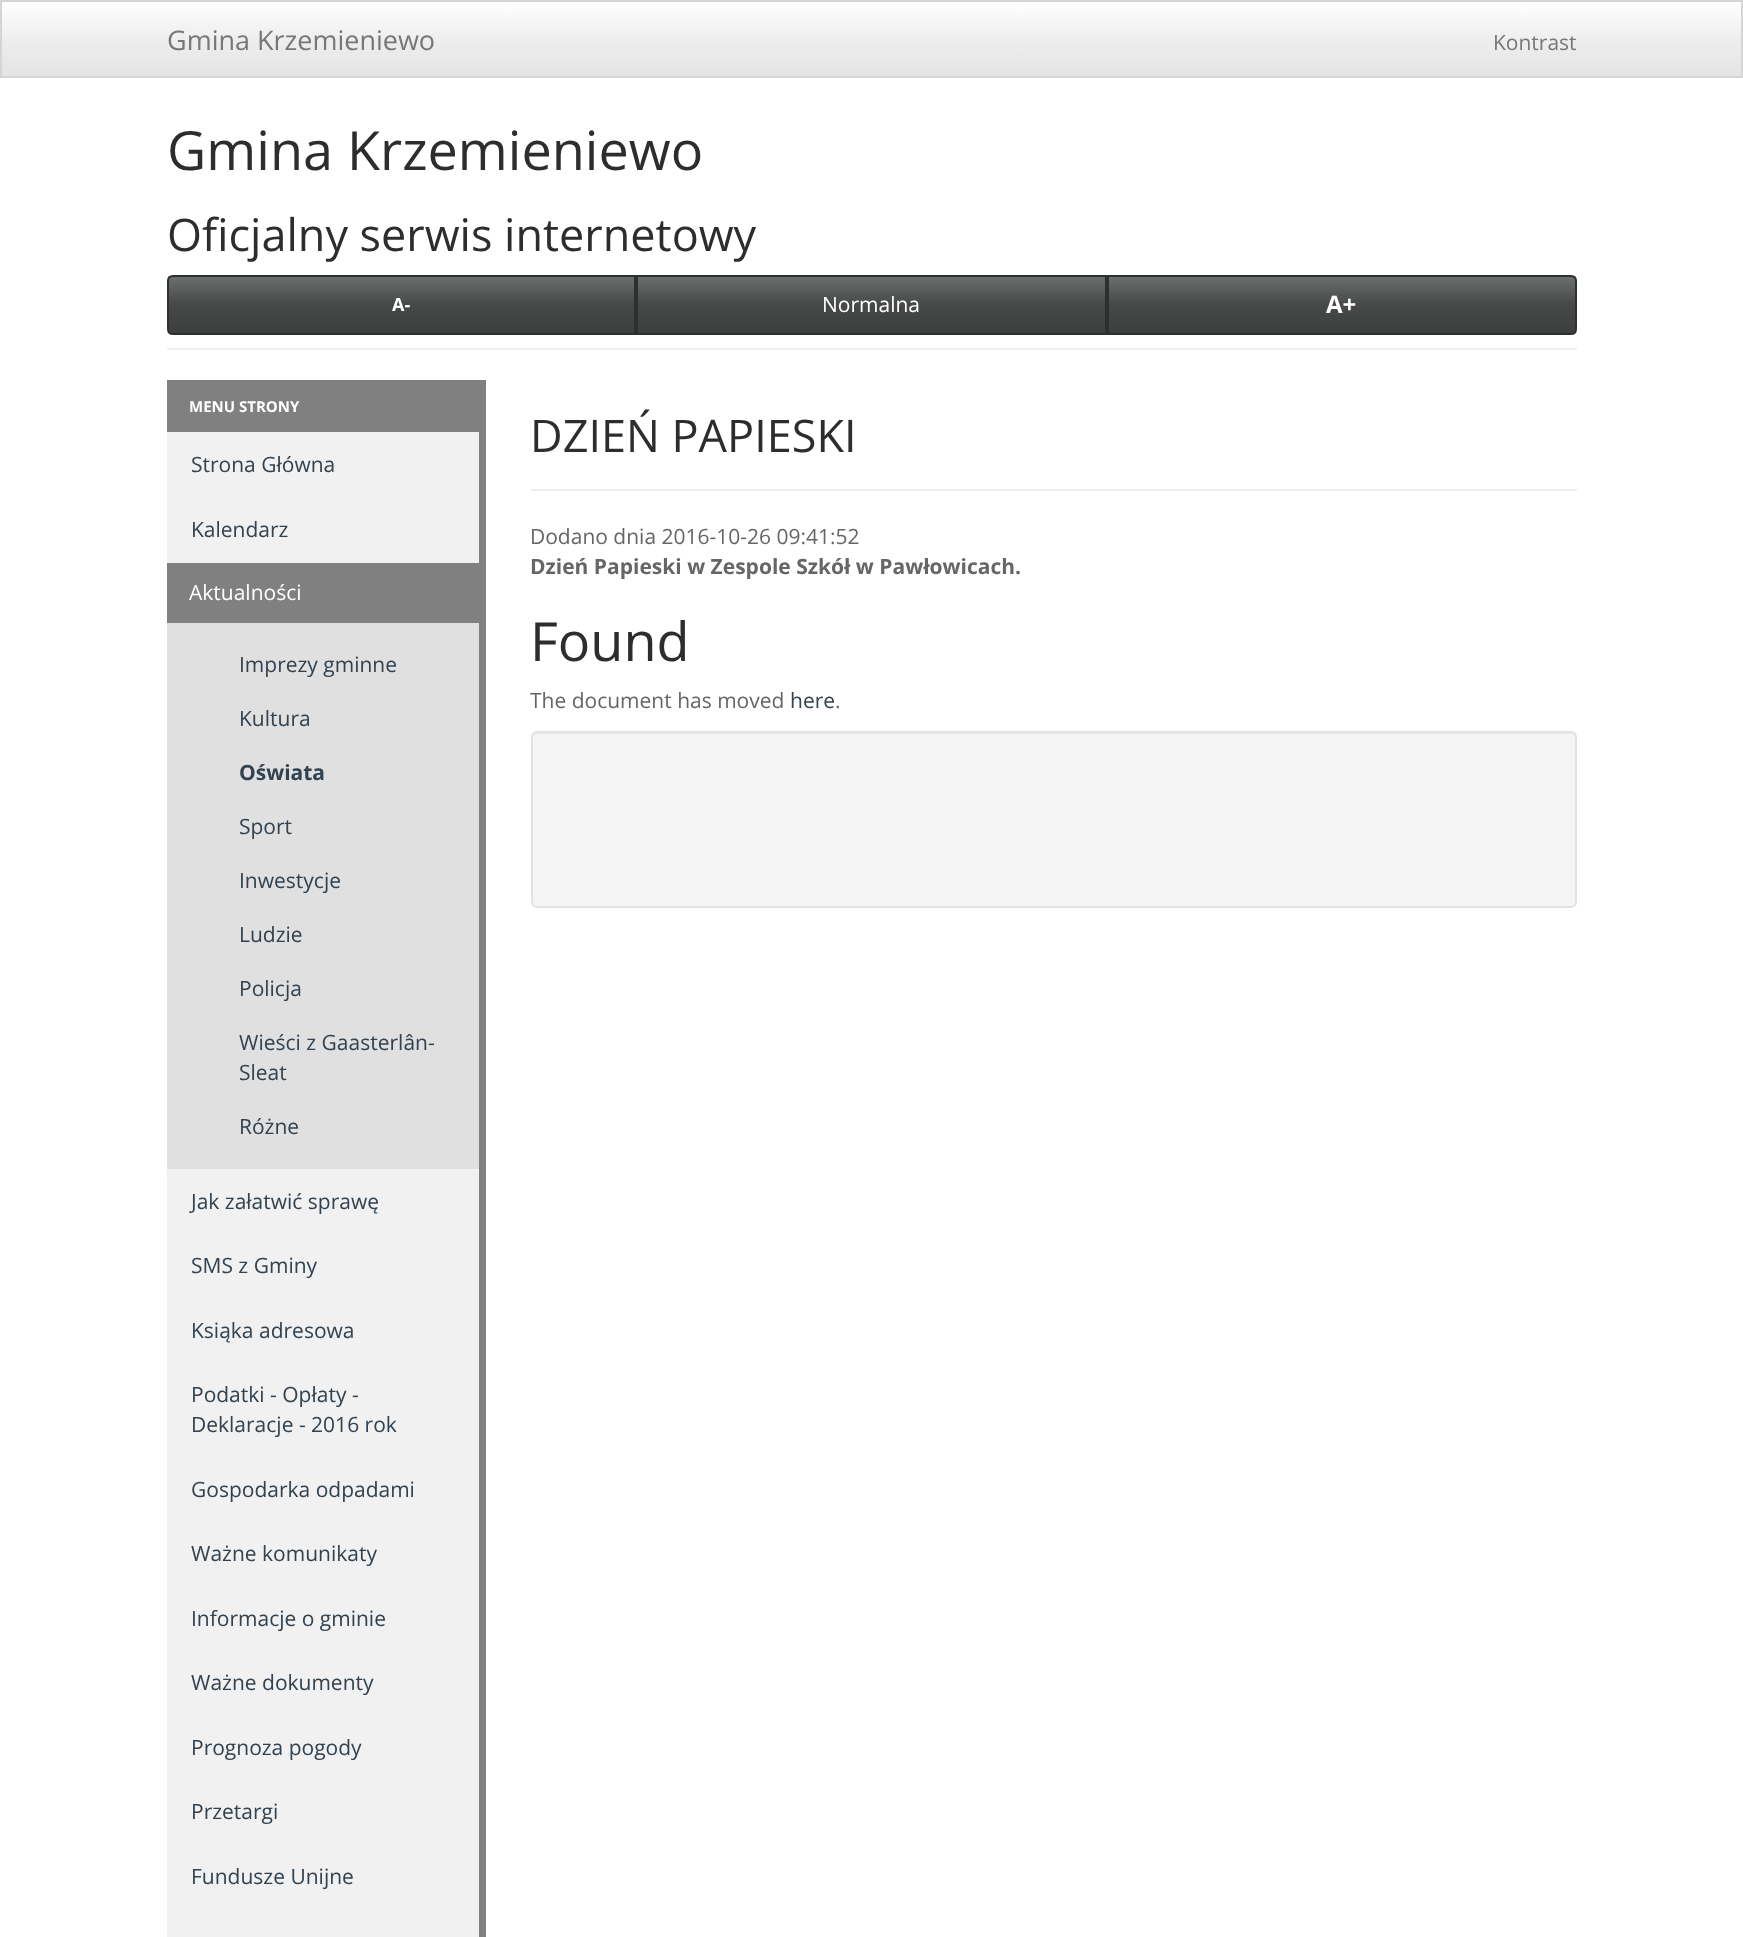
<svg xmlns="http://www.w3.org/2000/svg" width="1743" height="1937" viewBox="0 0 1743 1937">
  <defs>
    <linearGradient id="g1" gradientUnits="userSpaceOnUse" x1="872" y1="1.5" x2="872" y2="77"><stop offset="0" stop-color="#ffffff"/><stop offset="0.5" stop-color="#eeeeee"/><stop offset="1" stop-color="#e4e4e4"/></linearGradient>
    <clipPath id="clip1"><path d="M173 275H636V335H173C169.5 335 167 332.5 167 329V281C167 277.5 169.5 275 173 275Z"/></clipPath>
    <linearGradient id="g2" gradientUnits="userSpaceOnUse" x1="401" y1="276" x2="401" y2="333"><stop offset="0" stop-color="#6d7070"/><stop offset="0.5" stop-color="#474949"/><stop offset="1" stop-color="#3d3f3f"/></linearGradient>
    <linearGradient id="g3" gradientUnits="userSpaceOnUse" x1="872" y1="276" x2="872" y2="333"><stop offset="0" stop-color="#6d7070"/><stop offset="0.5" stop-color="#474949"/><stop offset="1" stop-color="#3d3f3f"/></linearGradient>
    <linearGradient id="g4" gradientUnits="userSpaceOnUse" x1="1342" y1="276" x2="1342" y2="333"><stop offset="0" stop-color="#6d7070"/><stop offset="0.5" stop-color="#474949"/><stop offset="1" stop-color="#3d3f3f"/></linearGradient>
  </defs>
  <rect width="100%" height="100%" fill="#ffffff"/>
  <rect x="2" y="7" width="1739" height="69" fill="url(#g1)"/>
  <rect x="1" y="1" width="1741" height="76" fill="none" stroke="#d5d5d5" stroke-width="2"/>
  <text x="167" y="50" font-family="Open Sans" font-size="27" fill="#777777">Gmina Krzemieniewo</text>
  <text x="1493" y="50" font-family="Open Sans" font-size="21" fill="#777777">Kontrast</text>
  <rect x="167" y="348" width="1410" height="2" fill="#eeeeee"/>
  <text x="167" y="170" font-family="Open Sans" font-size="54" fill="#2d2d2d">Gmina Krzemieniewo</text>
  <text x="167" y="251" font-family="Open Sans" font-size="45" fill="#2d2d2d">Oficjalny serwis internetowy</text>
  <g clip-path="url(#clip1)">
    <rect x="168" y="276" width="466" height="57" fill="url(#g2)"/>
  </g>
  <path d="M173 276H635V334H173C170 334 168 332 168 329V281C168 278 170 276 173 276Z" fill="none" stroke="#2e2f2f" stroke-width="2"/>
  <text x="392" y="311" font-family="Open Sans" font-size="18" font-weight="bold" fill="#ffffff">A-</text>
  <rect x="638" y="277" width="467" height="56" fill="url(#g3)"/>
  <rect x="637" y="276" width="469" height="58" fill="none" stroke="#2e2f2f" stroke-width="2"/>
  <text x="822" y="312" font-family="Open Sans" font-size="21" fill="#ffffff">Normalna</text>
  <rect x="1109" y="276" width="466" height="57" fill="url(#g4)"/>
  <path d="M1108 276H1571C1574 276 1576 278 1576 281V329C1576 332 1574 334 1571 334H1108Z" fill="none" stroke="#2e2f2f" stroke-width="2"/>
  <text x="1326" y="313" font-family="Open Sans" font-size="24" font-weight="bold" fill="#ffffff">A+</text>
  <rect x="167" y="432" width="312" height="1505" fill="#f1f1f1"/>
  <rect x="479" y="380" width="7" height="1557" fill="#808080"/>
  <rect x="167" y="380" width="312" height="52" fill="#808080"/>
  <text x="189" y="412" font-family="Open Sans" font-size="15" font-weight="bold" fill="#ffffff">MENU STRONY</text>
  <text x="191" y="472" font-family="Open Sans" font-size="21" fill="#324250">Strona Główna</text>
  <text x="191" y="537" font-family="Open Sans" font-size="21" fill="#324250">Kalendarz</text>
  <rect x="167" y="563" width="312" height="60" fill="#808080"/>
  <text x="189" y="600" font-family="Open Sans" font-size="21" fill="#ffffff">Aktualności</text>
  <rect x="167" y="623" width="312" height="546" fill="#e0e0e0"/>
  <text x="239" y="672" font-family="Open Sans" font-size="21" fill="#324250">Imprezy gminne</text>
  <text x="239" y="726" font-family="Open Sans" font-size="21" fill="#324250">Kultura</text>
  <text x="239" y="780" font-family="Open Sans" font-size="21" font-weight="bold" fill="#324250">Oświata</text>
  <text x="239" y="834" font-family="Open Sans" font-size="21" fill="#324250">Sport</text>
  <text x="239" y="888" font-family="Open Sans" font-size="21" fill="#324250">Inwestycje</text>
  <text x="239" y="942" font-family="Open Sans" font-size="21" fill="#324250">Ludzie</text>
  <text x="239" y="996" font-family="Open Sans" font-size="21" fill="#324250">Policja</text>
  <text x="239" y="1050" font-family="Open Sans" font-size="21" fill="#324250">Wieści z Gaasterlân-</text>
  <text x="239" y="1080" font-family="Open Sans" font-size="21" fill="#324250">Sleat</text>
  <text x="239" y="1134" font-family="Open Sans" font-size="21" fill="#324250">Różne</text>
  <text x="191" y="1209" font-family="Open Sans" font-size="21" fill="#324250">Jak załatwić sprawę</text>
  <text x="191" y="1273" font-family="Open Sans" font-size="21" fill="#324250">SMS z Gminy</text>
  <text x="191" y="1338" font-family="Open Sans" font-size="21" fill="#324250">Ksiąka adresowa</text>
  <text x="191" y="1402" font-family="Open Sans" font-size="21" fill="#324250">Podatki - Opłaty -</text>
  <text x="191" y="1432" font-family="Open Sans" font-size="21" fill="#324250">Deklaracje - 2016 rok</text>
  <text x="191" y="1497" font-family="Open Sans" font-size="21" fill="#324250">Gospodarka odpadami</text>
  <text x="191" y="1561" font-family="Open Sans" font-size="21" fill="#324250">Ważne komunikaty</text>
  <text x="191" y="1626" font-family="Open Sans" font-size="21" fill="#324250">Informacje o gminie</text>
  <text x="191" y="1690" font-family="Open Sans" font-size="21" fill="#324250">Ważne dokumenty</text>
  <text x="191" y="1755" font-family="Open Sans" font-size="21" fill="#324250">Prognoza pogody</text>
  <text x="191" y="1819" font-family="Open Sans" font-size="21" fill="#324250">Przetargi</text>
  <text x="191" y="1884" font-family="Open Sans" font-size="21" fill="#324250">Fundusze Unijne</text>
  <text x="530" y="452" font-family="Open Sans" font-size="45" fill="#2d2d2d">DZIEŃ PAPIESKI</text>
  <rect x="531" y="489" width="1046" height="2" fill="#eeeeee"/>
  <text x="530" y="544" font-family="Open Sans" font-size="21" fill="#666666">Dodano dnia 2016-10-26 09:41:52</text>
  <text x="530" y="574" font-family="Open Sans" font-size="21" font-weight="bold" fill="#666666">Dzień Papieski w Zespole Szkół w Pawłowicach.</text>
  <text x="530" y="661" font-family="Open Sans" font-size="54" fill="#2d2d2d">Found</text>
  <text x="530" y="708" font-family="Open Sans" font-size="21" fill="#666666">The document has moved</text>
  <text x="790" y="708" font-family="Open Sans" font-size="21" fill="#324250">here</text>
  <text x="835" y="708" font-family="Open Sans" font-size="21" fill="#666666">.</text>
  <rect x="531" y="731" width="1046" height="177" rx="6" fill="#f5f5f5"/>
  <path d="M537 734H1570C1573 734 1575 736 1575 738V737C1575 734 1573 732 1570 732H538C536 732 534 734 533 736C534 735 536 734 537 734Z" fill="#e9e9e9"/>
  <rect x="532" y="732" width="1044" height="175" rx="5" fill="none" stroke="#e3e3e3" stroke-width="2"/>
</svg>
